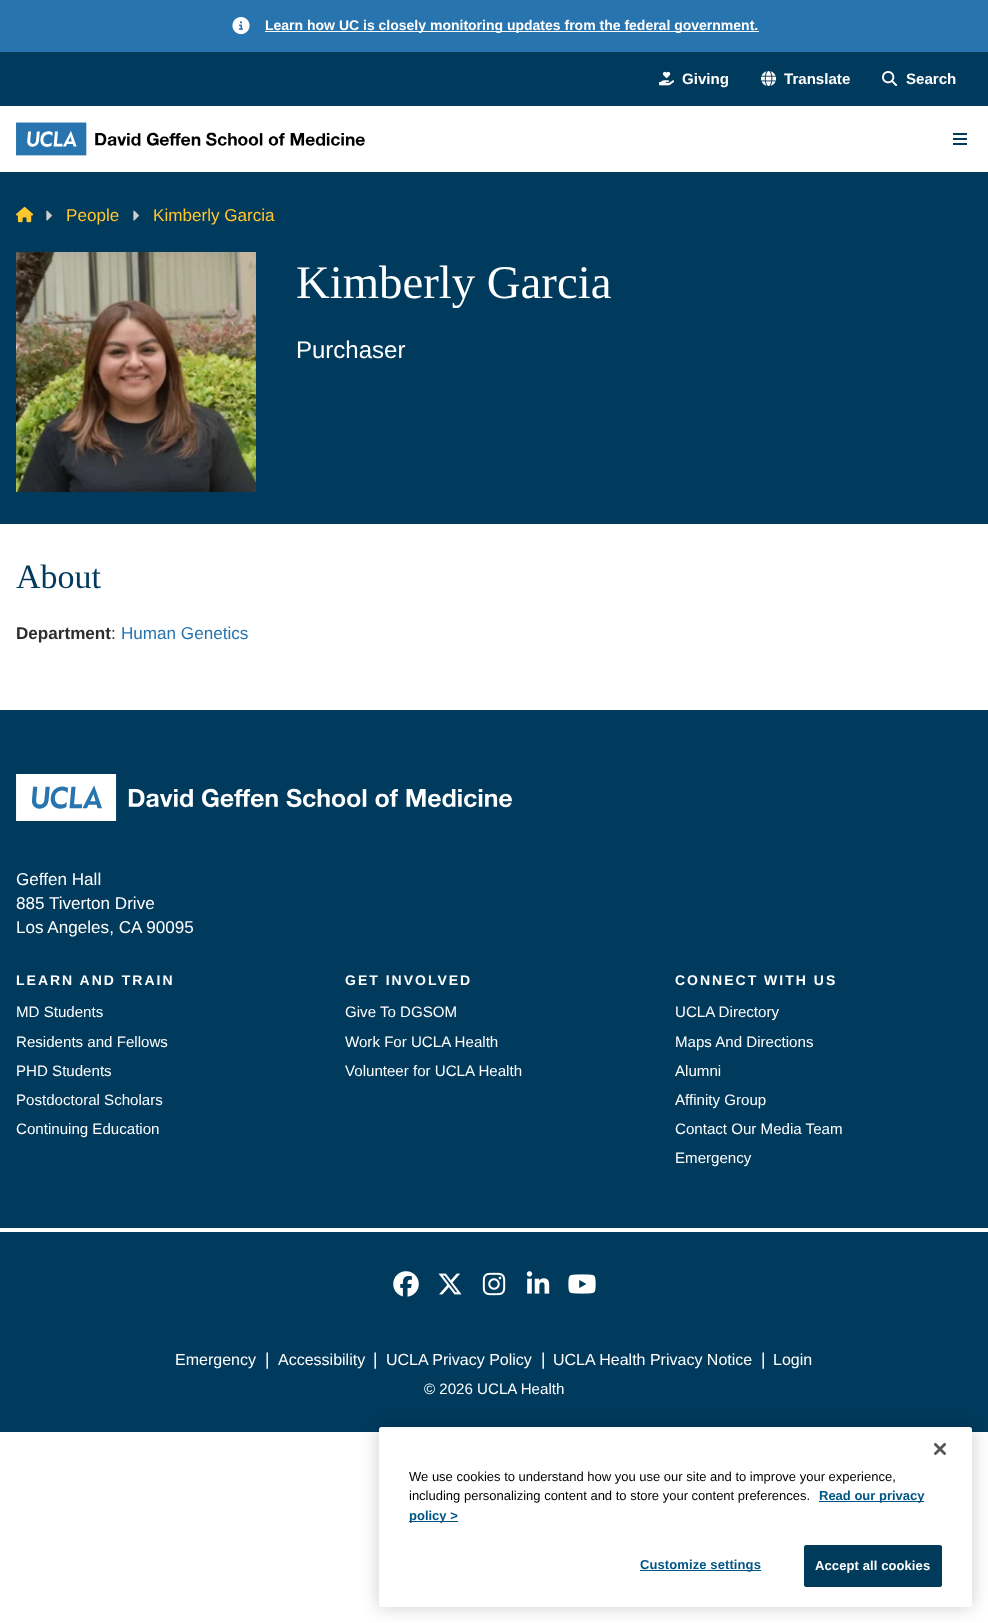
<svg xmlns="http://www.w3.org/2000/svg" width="988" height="1623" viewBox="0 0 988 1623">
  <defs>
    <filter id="blur1" x="-50%" y="-200%" width="200%" height="500%"><feGaussianBlur stdDeviation="9"/></filter>
  </defs>
  <rect width="100%" height="100%" fill="#ffffff"/>
  <rect x="0" y="0" width="988" height="52" fill="#2874af"/>
  <image x="232" y="17" width="18" height="18" href="img1.png"/>
  <rect x="265" y="31" width="494" height="1" fill="#ffffff"/>
  <text x="265" y="30" font-family="Liberation Sans" font-size="14" font-weight="bold" fill="#ffffff">Learn how UC is closely monitoring updates from the federal government.</text>
  <rect x="0" y="52" width="988" height="54" fill="#003a5c"/>
  <image x="659" y="71" width="15" height="15" href="img2.png"/>
  <text x="682" y="84" font-family="Liberation Sans" font-size="15.1" font-weight="bold" fill="#ffffff">Giving</text>
  <image x="761" y="71" width="15" height="15" href="img3.png"/>
  <text x="784" y="84" font-family="Liberation Sans" font-size="15.1" font-weight="bold" fill="#ffffff">Translate</text>
  <image x="882" y="71" width="16" height="15" href="img4.png"/>
  <text x="906" y="84" font-family="Liberation Sans" font-size="15.1" font-weight="bold" fill="#ffffff">Search</text>
  <image x="16" y="122" width="349" height="34" href="img5.png"/>
  <rect x="953" y="133" width="14" height="2" fill="#003a5c"/>
  <rect x="953" y="138" width="14" height="2" fill="#003a5c"/>
  <rect x="953" y="143" width="14" height="2" fill="#003a5c"/>
  <rect x="0" y="172" width="988" height="352" fill="#003a5c"/>
  <image x="16" y="207" width="18" height="16" href="img6.png"/>
  <image x="46" y="210" width="6" height="11" href="img7.png"/>
  <text x="66" y="221" font-family="Liberation Sans" font-size="17.1" fill="#ffc72e">People</text>
  <image x="133" y="210" width="6" height="11" href="img7.png"/>
  <text x="153" y="221" font-family="Liberation Sans" font-size="17.1" fill="#ffc72e">Kimberly Garcia</text>
  <image x="16" y="252" width="240" height="240" href="img8.png"/>
  <text x="296" y="298" font-family="Liberation Serif" font-size="46.75" fill="#ffffff">Kimberly Garcia</text>
  <text x="296" y="358" font-family="Liberation Sans" font-size="24" fill="#ffffff">Purchaser</text>
  <text x="16" y="588" font-family="Liberation Serif" font-size="34" fill="#003a5c">About</text>
  <text x="16" y="639" font-family="Liberation Sans" font-size="17.1" font-weight="bold" fill="#2e2e2e">Department</text>
  <text x="111" y="639" font-family="Liberation Sans" font-size="17.1" fill="#2e2e2e">:</text>
  <text x="121" y="639" font-family="Liberation Sans" font-size="17.1" fill="#2874af">Human Genetics</text>
  <rect x="0" y="710" width="988" height="722" fill="#003a5c"/>
  <image x="16" y="774" width="496" height="47" href="img9.png"/>
  <text x="16" y="885" font-family="Liberation Sans" font-size="17.1" fill="#ffffff">Geffen Hall</text>
  <text x="16" y="909" font-family="Liberation Sans" font-size="17.1" fill="#ffffff">885 Tiverton Drive</text>
  <text x="16" y="933" font-family="Liberation Sans" font-size="17.1" fill="#ffffff">Los Angeles, CA 90095</text>
  <text x="16" y="985" font-family="Liberation Sans" font-size="14" font-weight="bold" letter-spacing="2" fill="#ffffff">LEARN AND TRAIN</text>
  <text x="16" y="1017" font-family="Liberation Sans" font-size="15.1" fill="#ffffff">MD Students</text>
  <text x="16" y="1047" font-family="Liberation Sans" font-size="15.1" fill="#ffffff">Residents and Fellows</text>
  <text x="16" y="1076" font-family="Liberation Sans" font-size="15.1" fill="#ffffff">PHD Students</text>
  <text x="16" y="1105" font-family="Liberation Sans" font-size="15.1" fill="#ffffff">Postdoctoral Scholars</text>
  <text x="16" y="1134" font-family="Liberation Sans" font-size="15.1" fill="#ffffff">Continuing Education</text>
  <text x="345" y="985" font-family="Liberation Sans" font-size="14" font-weight="bold" letter-spacing="2" fill="#ffffff">GET INVOLVED</text>
  <text x="345" y="1017" font-family="Liberation Sans" font-size="15.1" fill="#ffffff">Give To DGSOM</text>
  <text x="345" y="1047" font-family="Liberation Sans" font-size="15.1" fill="#ffffff">Work For UCLA Health</text>
  <text x="345" y="1076" font-family="Liberation Sans" font-size="15.1" fill="#ffffff">Volunteer for UCLA Health</text>
  <text x="675" y="985" font-family="Liberation Sans" font-size="14" font-weight="bold" letter-spacing="2" fill="#ffffff">CONNECT WITH US</text>
  <text x="675" y="1017" font-family="Liberation Sans" font-size="15.1" fill="#ffffff">UCLA Directory</text>
  <text x="675" y="1047" font-family="Liberation Sans" font-size="15.1" fill="#ffffff">Maps And Directions</text>
  <text x="675" y="1076" font-family="Liberation Sans" font-size="15.1" fill="#ffffff">Alumni</text>
  <text x="675" y="1105" font-family="Liberation Sans" font-size="15.1" fill="#ffffff">Affinity Group</text>
  <text x="675" y="1134" font-family="Liberation Sans" font-size="15.1" fill="#ffffff">Contact Our Media Team</text>
  <text x="675" y="1163" font-family="Liberation Sans" font-size="15.1" fill="#ffffff">Emergency</text>
  <rect x="0" y="1228" width="988" height="4" fill="#ffffff"/>
  <image x="393" y="1271" width="26" height="26" href="img10.png"/>
  <image x="438" y="1273" width="24" height="22" href="img11.png"/>
  <image x="482" y="1272" width="24" height="24" href="img12.png"/>
  <image x="526" y="1271" width="24" height="23" href="img13.png"/>
  <image x="568" y="1274" width="28" height="20" href="img14.png"/>
  <text x="175" y="1365" font-family="Liberation Sans" font-size="16" fill="#ffffff">Emergency</text>
  <text x="265" y="1365" font-family="Liberation Sans" font-size="17.1" fill="#ffffff">|</text>
  <text x="278" y="1365" font-family="Liberation Sans" font-size="16" fill="#ffffff">Accessibility</text>
  <text x="373" y="1365" font-family="Liberation Sans" font-size="17.1" fill="#ffffff">|</text>
  <text x="386" y="1365" font-family="Liberation Sans" font-size="16" fill="#ffffff">UCLA Privacy Policy</text>
  <text x="541" y="1365" font-family="Liberation Sans" font-size="17.1" fill="#ffffff">|</text>
  <text x="553" y="1365" font-family="Liberation Sans" font-size="16" fill="#ffffff">UCLA Health Privacy Notice</text>
  <text x="761" y="1365" font-family="Liberation Sans" font-size="17.1" fill="#ffffff">|</text>
  <text x="773" y="1365" font-family="Liberation Sans" font-size="16" fill="#ffffff">Login</text>
  <text x="424" y="1394" font-family="Liberation Sans" font-size="15.1" fill="#ffffff">© 2026 UCLA Health</text>
  <rect x="379" y="1427" width="593" height="180" rx="2.5" fill="#000000" fill-opacity="0.2" filter="url(#blur1)"/>
  <rect x="379" y="1427" width="593" height="180" rx="2.5" fill="#ffffff"/>
  <image x="934" y="1443" width="12" height="12" href="img15.png"/>
  <text x="409" y="1481" font-family="Liberation Sans" font-size="13" fill="#000000">We use cookies to understand how you use our site and to improve your experience,</text>
  <text x="409" y="1500" font-family="Liberation Sans" font-size="13" fill="#000000">including personalizing content and to store your content preferences.</text>
  <rect x="819" y="1501" width="105" height="1" fill="#005587"/>
  <text x="819" y="1500" font-family="Liberation Sans" font-size="13" font-weight="bold" fill="#005587">Read our privacy</text>
  <rect x="409" y="1521" width="49" height="1" fill="#005587"/>
  <text x="409" y="1520" font-family="Liberation Sans" font-size="13" font-weight="bold" fill="#005587">policy &gt;</text>
  <rect x="640" y="1570" width="121" height="1" fill="#005587"/>
  <text x="640" y="1569" font-family="Liberation Sans" font-size="13" font-weight="bold" letter-spacing="0.1" fill="#005587">Customize settings</text>
  <rect x="804.5" y="1545.5" width="137" height="41" rx="1.5" fill="#003b5c" stroke="#003b5c"/>
  <text x="815" y="1570" font-family="Liberation Sans" font-size="13" font-weight="bold" letter-spacing="0.1" fill="#ffffff">Accept all cookies</text>
</svg>
